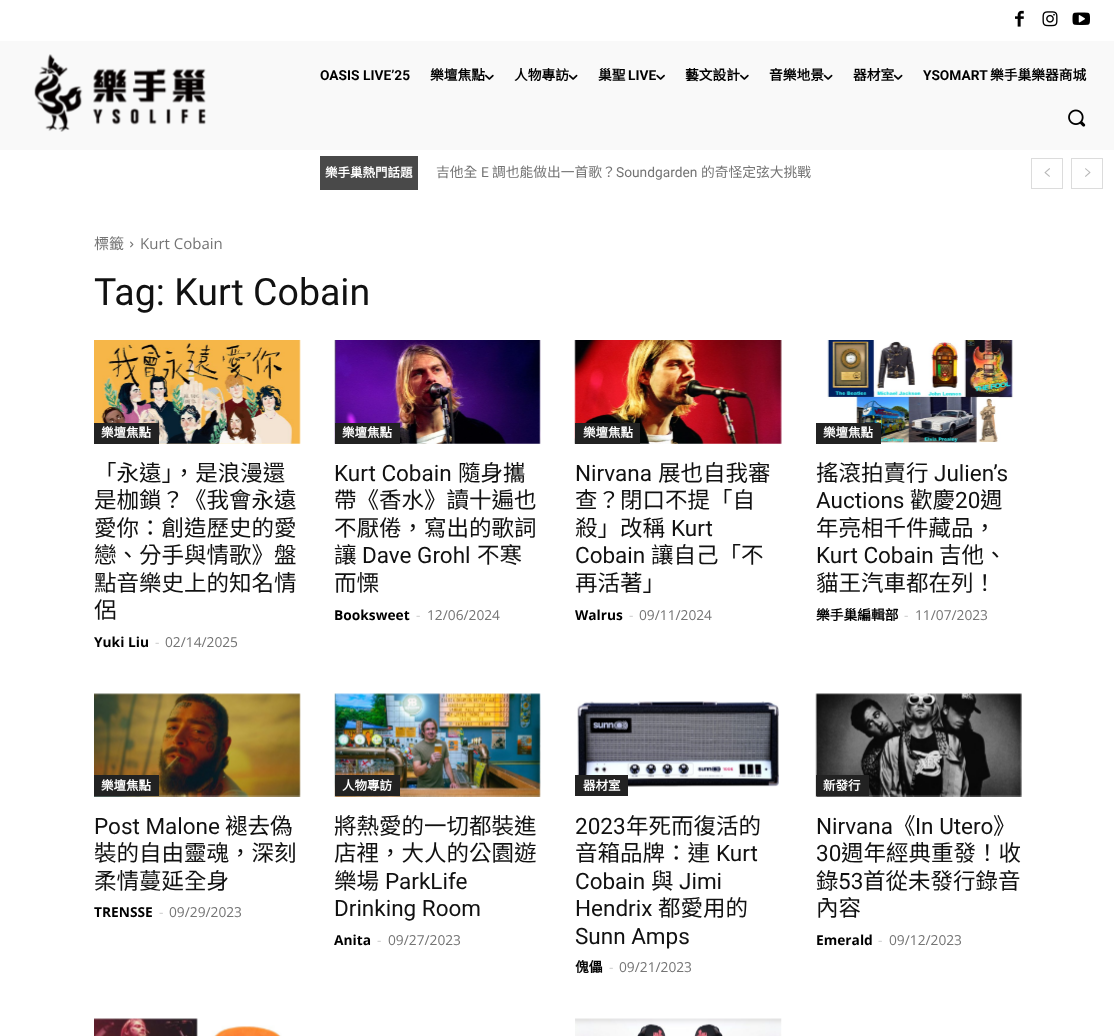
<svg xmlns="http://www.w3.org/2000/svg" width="1114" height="1036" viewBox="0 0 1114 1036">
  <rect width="100%" height="100%" fill="#ffffff"/>
  <image x="1015" y="10" width="9" height="17" href="img1.png"/>
  <image x="1042" y="11" width="16" height="16" href="img2.png"/>
  <image x="1072" y="12" width="18" height="13" href="img3.png"/>
  <rect x="0" y="41" width="1114" height="109" fill="#f9f9f9"/>
  <image x="34" y="54" width="172" height="78" href="img4.png"/>
  <text x="320" y="80" font-family="Roboto" font-size="13.75" font-weight="bold" fill="#000000">OASIS LIVE’25</text>
  <text x="430" y="80" font-family="Noto Sans CJK TC" font-size="13.75" font-weight="bold" fill="#000000">樂壇焦點</text>
  <image x="485" y="74" width="9" height="6" href="img5.png"/>
  <text x="514" y="80" font-family="Noto Sans CJK TC" font-size="13.75" font-weight="bold" fill="#000000">人物專訪</text>
  <image x="568" y="74" width="10" height="6" href="img6.png"/>
  <text x="598" y="80" font-family="Noto Sans CJK TC" font-size="13.75" font-weight="bold" fill="#000000">巢聖</text>
  <text x="628" y="80" font-family="Roboto" font-size="13.75" font-weight="bold" fill="#000000">LIVE</text>
  <image x="656" y="74" width="9" height="6" href="img7.png"/>
  <text x="685" y="80" font-family="Noto Sans CJK TC" font-size="13.75" font-weight="bold" fill="#000000">藝文設計</text>
  <image x="740" y="74" width="9" height="6" href="img5.png"/>
  <text x="769" y="80" font-family="Noto Sans CJK TC" font-size="13.75" font-weight="bold" fill="#000000">音樂地景</text>
  <image x="823" y="74" width="10" height="6" href="img8.png"/>
  <text x="853" y="80" font-family="Noto Sans CJK TC" font-size="13.75" font-weight="bold" fill="#000000">器材室</text>
  <image x="893" y="74" width="10" height="6" href="img9.png"/>
  <text x="923" y="80" font-family="Roboto" font-size="13.75" font-weight="bold" fill="#000000">YSOMART</text>
  <text x="990" y="80" font-family="Noto Sans CJK TC" font-size="13.75" font-weight="bold" fill="#000000">樂手巢樂器商城</text>
  <image x="1068" y="109" width="18" height="18" href="img10.png"/>
  <rect x="320" y="156" width="98" height="34" fill="#494949"/>
  <text x="325" y="177" font-family="Noto Sans CJK TC" font-size="12.5" font-weight="bold" fill="#ffffff">樂手巢熱門話題</text>
  <text x="436" y="177" font-family="Noto Sans CJK TC" font-size="13.75" fill="#747474">吉他全</text>
  <text x="481" y="177" font-family="Roboto" font-size="13.75" fill="#747474">E</text>
  <text x="492" y="177" font-family="Noto Sans CJK TC" font-size="13.75" fill="#747474">調也能做出一首歌？</text>
  <text x="616" y="177" font-family="Roboto" font-size="13.75" fill="#747474">Soundgarden</text>
  <text x="701" y="177" font-family="Noto Sans CJK TC" font-size="13.75" fill="#747474">的奇怪定弦大挑戰</text>
  <rect x="1031.5" y="158.5" width="31" height="30" fill="none" stroke="#dcdcdc"/>
  <image x="1044" y="168" width="6" height="9" href="img11.png"/>
  <rect x="1071.5" y="158.5" width="31" height="30" fill="none" stroke="#dcdcdc"/>
  <image x="1085" y="168" width="6" height="9" href="img12.png"/>
  <text x="94" y="249" font-family="Noto Sans CJK TC" font-size="15" fill="#747474">標籤</text>
  <image x="130" y="241" width="4" height="7" href="img13.png"/>
  <text x="140" y="249" font-family="Open Sans" font-size="15" fill="#747474">Kurt Cobain</text>
  <text x="94" y="305" font-family="Roboto" font-size="37.5" fill="#111111">Tag: Kurt Cobain</text>
  <image x="94" y="340" width="207" height="104" href="img14.png"/>
  <rect x="94" y="423" width="65" height="21" fill="#222222"/>
  <text x="101" y="437" font-family="Noto Sans CJK TC" font-size="12.5" font-weight="bold" fill="#ffffff">樂壇焦點</text>
  <text x="94" y="481" font-family="Noto Sans CJK TC" font-size="22.5" fill="#111111">「永遠」，是浪漫還</text>
  <text x="94" y="508" font-family="Noto Sans CJK TC" font-size="22.5" fill="#111111">是枷鎖？《我會永遠</text>
  <text x="94" y="536" font-family="Noto Sans CJK TC" font-size="22.5" fill="#111111">愛你：創造歷史的愛</text>
  <text x="94" y="563" font-family="Noto Sans CJK TC" font-size="22.5" fill="#111111">戀、分手與情歌》盤</text>
  <text x="94" y="591" font-family="Noto Sans CJK TC" font-size="22.5" fill="#111111">點音樂史上的知名情</text>
  <text x="94" y="618" font-family="Noto Sans CJK TC" font-size="22.5" fill="#111111">侶</text>
  <text x="94" y="647" font-family="Open Sans" font-size="13.75" font-weight="bold" fill="#000000">Yuki Liu</text>
  <text x="155" y="647" font-family="Open Sans" font-size="13.75" fill="#cccccc">-</text>
  <text x="165" y="647" font-family="Open Sans" font-size="13.75" fill="#747474">02/14/2025</text>
  <image x="334" y="340" width="207" height="104" href="img15.png"/>
  <rect x="335" y="423" width="65" height="21" fill="#222222"/>
  <text x="342" y="437" font-family="Noto Sans CJK TC" font-size="12.5" font-weight="bold" fill="#ffffff">樂壇焦點</text>
  <text x="334" y="481" font-family="Roboto" font-size="22.5" fill="#111111">Kurt Cobain</text>
  <text x="458" y="481" font-family="Noto Sans CJK TC" font-size="22.5" fill="#111111">隨身攜</text>
  <text x="334" y="508" font-family="Noto Sans CJK TC" font-size="22.5" fill="#111111">帶《香水》讀十遍也</text>
  <text x="334" y="536" font-family="Noto Sans CJK TC" font-size="22.5" fill="#111111">不厭倦，寫出的歌詞</text>
  <text x="334" y="563" font-family="Noto Sans CJK TC" font-size="22.5" fill="#111111">讓</text>
  <text x="362" y="563" font-family="Roboto" font-size="22.5" fill="#111111">Dave Grohl</text>
  <text x="477" y="563" font-family="Noto Sans CJK TC" font-size="22.5" fill="#111111">不寒</text>
  <text x="334" y="591" font-family="Noto Sans CJK TC" font-size="22.5" fill="#111111">而慄</text>
  <text x="334" y="620" font-family="Open Sans" font-size="13.75" font-weight="bold" fill="#000000">Booksweet</text>
  <text x="416" y="620" font-family="Open Sans" font-size="13.75" fill="#cccccc">-</text>
  <text x="427" y="620" font-family="Open Sans" font-size="13.75" fill="#747474">12/06/2024</text>
  <image x="574" y="340" width="208" height="104" href="img16.png"/>
  <rect x="575" y="423" width="65" height="21" fill="#222222"/>
  <text x="583" y="437" font-family="Noto Sans CJK TC" font-size="12.5" font-weight="bold" fill="#ffffff">樂壇焦點</text>
  <text x="575" y="481" font-family="Roboto" font-size="22.5" fill="#111111">Nirvana</text>
  <text x="658" y="481" font-family="Noto Sans CJK TC" font-size="22.5" fill="#111111">展也自我審</text>
  <text x="575" y="508" font-family="Noto Sans CJK TC" font-size="22.5" fill="#111111">查？閉口不提「自</text>
  <text x="575" y="536" font-family="Noto Sans CJK TC" font-size="22.5" fill="#111111">殺」改稱</text>
  <text x="671" y="536" font-family="Roboto" font-size="22.5" fill="#111111">Kurt</text>
  <text x="575" y="563" font-family="Roboto" font-size="22.5" fill="#111111">Cobain</text>
  <text x="651" y="563" font-family="Noto Sans CJK TC" font-size="22.5" fill="#111111">讓自己「不</text>
  <text x="575" y="591" font-family="Noto Sans CJK TC" font-size="22.5" fill="#111111">再活著」</text>
  <text x="575" y="620" font-family="Open Sans" font-size="13.75" font-weight="bold" fill="#000000">Walrus</text>
  <text x="629" y="620" font-family="Open Sans" font-size="13.75" fill="#cccccc">-</text>
  <text x="639" y="620" font-family="Open Sans" font-size="13.75" fill="#747474">09/11/2024</text>
  <image x="827" y="340" width="187" height="104" href="img17.png"/>
  <rect x="816" y="423" width="65" height="21" fill="#222222"/>
  <text x="823" y="437" font-family="Noto Sans CJK TC" font-size="12.5" font-weight="bold" fill="#ffffff">樂壇焦點</text>
  <text x="816" y="481" font-family="Noto Sans CJK TC" font-size="22.5" fill="#111111">搖滾拍賣行</text>
  <text x="934" y="481" font-family="Roboto" font-size="22.5" fill="#111111">Julien’s</text>
  <text x="816" y="508" font-family="Roboto" font-size="22.5" fill="#111111">Auctions</text>
  <text x="910" y="508" font-family="Noto Sans CJK TC" font-size="22.5" fill="#111111">歡慶</text>
  <text x="955" y="508" font-family="Roboto" font-size="22.5" fill="#111111">20</text>
  <text x="980" y="508" font-family="Noto Sans CJK TC" font-size="22.5" fill="#111111">週</text>
  <text x="816" y="536" font-family="Noto Sans CJK TC" font-size="22.5" fill="#111111">年亮相千件藏品，</text>
  <text x="816" y="563" font-family="Roboto" font-size="22.5" fill="#111111">Kurt Cobain</text>
  <text x="939" y="563" font-family="Noto Sans CJK TC" font-size="22.5" fill="#111111">吉他、</text>
  <text x="816" y="591" font-family="Noto Sans CJK TC" font-size="22.5" fill="#111111">貓王汽車都在列！</text>
  <text x="816" y="620" font-family="Noto Sans CJK TC" font-size="13.75" font-weight="bold" fill="#000000">樂手巢編輯部</text>
  <text x="904" y="620" font-family="Open Sans" font-size="13.75" fill="#cccccc">-</text>
  <text x="915" y="620" font-family="Open Sans" font-size="13.75" fill="#747474">11/07/2023</text>
  <image x="94" y="693" width="207" height="104" href="img18.png"/>
  <rect x="94" y="775" width="65" height="21" fill="#222222"/>
  <text x="101" y="790" font-family="Noto Sans CJK TC" font-size="12.5" font-weight="bold" fill="#ffffff">樂壇焦點</text>
  <text x="94" y="834" font-family="Roboto" font-size="22.5" fill="#111111">Post Malone</text>
  <text x="225" y="834" font-family="Noto Sans CJK TC" font-size="22.5" fill="#111111">褪去偽</text>
  <text x="94" y="861" font-family="Noto Sans CJK TC" font-size="22.5" fill="#111111">裝的自由靈魂，深刻</text>
  <text x="94" y="889" font-family="Noto Sans CJK TC" font-size="22.5" fill="#111111">柔情蔓延全身</text>
  <text x="94" y="917" font-family="Open Sans" font-size="13.75" font-weight="bold" fill="#000000">TRENSSE</text>
  <text x="159" y="917" font-family="Open Sans" font-size="13.75" fill="#cccccc">-</text>
  <text x="169" y="917" font-family="Open Sans" font-size="13.75" fill="#747474">09/29/2023</text>
  <image x="334" y="693" width="207" height="104" href="img19.png"/>
  <rect x="335" y="775" width="65" height="21" fill="#222222"/>
  <text x="342" y="790" font-family="Noto Sans CJK TC" font-size="12.5" font-weight="bold" fill="#ffffff">人物專訪</text>
  <text x="334" y="834" font-family="Noto Sans CJK TC" font-size="22.5" fill="#111111">將熱愛的一切都裝進</text>
  <text x="334" y="861" font-family="Noto Sans CJK TC" font-size="22.5" fill="#111111">店裡，大人的公園遊</text>
  <text x="334" y="889" font-family="Noto Sans CJK TC" font-size="22.5" fill="#111111">樂場</text>
  <text x="385" y="889" font-family="Roboto" font-size="22.5" fill="#111111">ParkLife</text>
  <text x="334" y="916" font-family="Roboto" font-size="22.5" fill="#111111">Drinking Room</text>
  <text x="334" y="945" font-family="Open Sans" font-size="13.75" font-weight="bold" fill="#000000">Anita</text>
  <text x="377" y="945" font-family="Open Sans" font-size="13.75" fill="#cccccc">-</text>
  <text x="388" y="945" font-family="Open Sans" font-size="13.75" fill="#747474">09/27/2023</text>
  <image x="577" y="701" width="202" height="86" href="img20.png"/>
  <rect x="575" y="775" width="53" height="21" fill="#222222"/>
  <text x="583" y="790" font-family="Noto Sans CJK TC" font-size="12.5" font-weight="bold" fill="#ffffff">器材室</text>
  <text x="575" y="834" font-family="Roboto" font-size="22.5" fill="#111111">2023</text>
  <text x="626" y="834" font-family="Noto Sans CJK TC" font-size="22.5" fill="#111111">年死而復活的</text>
  <text x="575" y="861" font-family="Noto Sans CJK TC" font-size="22.5" fill="#111111">音箱品牌：連</text>
  <text x="716" y="861" font-family="Roboto" font-size="22.5" fill="#111111">Kurt</text>
  <text x="575" y="889" font-family="Roboto" font-size="22.5" fill="#111111">Cobain</text>
  <text x="651" y="889" font-family="Noto Sans CJK TC" font-size="22.5" fill="#111111">與</text>
  <text x="679" y="889" font-family="Roboto" font-size="22.5" fill="#111111">Jimi</text>
  <text x="575" y="916" font-family="Roboto" font-size="22.5" fill="#111111">Hendrix</text>
  <text x="658" y="916" font-family="Noto Sans CJK TC" font-size="22.5" fill="#111111">都愛用的</text>
  <text x="575" y="944" font-family="Roboto" font-size="22.5" fill="#111111">Sunn Amps</text>
  <text x="575" y="972" font-family="Noto Sans CJK TC" font-size="13.75" font-weight="bold" fill="#000000">傀儡</text>
  <text x="609" y="972" font-family="Open Sans" font-size="13.75" fill="#cccccc">-</text>
  <text x="619" y="972" font-family="Open Sans" font-size="13.75" fill="#747474">09/21/2023</text>
  <image x="815" y="693" width="207" height="104" href="img21.png"/>
  <rect x="816" y="775" width="53" height="21" fill="#222222"/>
  <text x="823" y="790" font-family="Noto Sans CJK TC" font-size="12.5" font-weight="bold" fill="#ffffff">新發行</text>
  <text x="816" y="834" font-family="Roboto" font-size="22.5" fill="#111111">Nirvana</text>
  <text x="893" y="834" font-family="Noto Sans CJK TC" font-size="22.5" fill="#111111">《</text>
  <text x="915" y="834" font-family="Roboto" font-size="22.5" fill="#111111">In Utero</text>
  <text x="993" y="834" font-family="Noto Sans CJK TC" font-size="22.5" fill="#111111">》</text>
  <text x="816" y="861" font-family="Roboto" font-size="22.5" fill="#111111">30</text>
  <text x="841" y="861" font-family="Noto Sans CJK TC" font-size="22.5" fill="#111111">週年經典重發！收</text>
  <text x="816" y="889" font-family="Noto Sans CJK TC" font-size="22.5" fill="#111111">錄</text>
  <text x="838" y="889" font-family="Roboto" font-size="22.5" fill="#111111">53</text>
  <text x="863" y="889" font-family="Noto Sans CJK TC" font-size="22.5" fill="#111111">首從未發行錄音</text>
  <text x="816" y="916" font-family="Noto Sans CJK TC" font-size="22.5" fill="#111111">內容</text>
  <text x="816" y="945" font-family="Open Sans" font-size="13.75" font-weight="bold" fill="#000000">Emerald</text>
  <text x="878" y="945" font-family="Open Sans" font-size="13.75" fill="#cccccc">-</text>
  <text x="889" y="945" font-family="Open Sans" font-size="13.75" fill="#747474">09/12/2023</text>
  <image x="94" y="1018" width="188" height="18" href="img22.png"/>
  <image x="575" y="1018" width="207" height="18" href="img23.png"/>
</svg>
